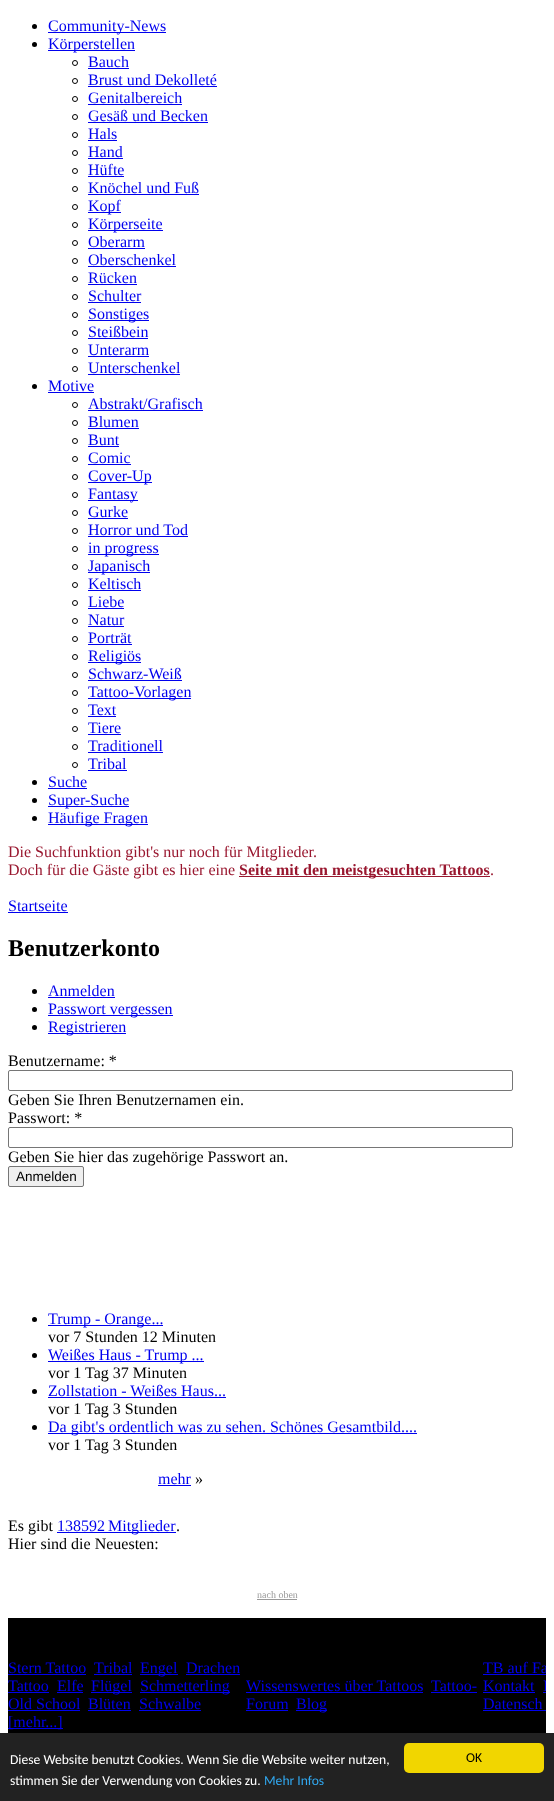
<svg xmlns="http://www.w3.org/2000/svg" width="554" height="1801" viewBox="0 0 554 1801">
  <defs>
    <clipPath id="clip1"><rect x="8" y="1618" width="538" height="175"/></clipPath>
  </defs>
  <rect width="100%" height="100%" fill="#ffffff"/>
  <circle cx="34.5" cy="26.5" r="2.5" fill="#000000"/>
  <rect x="48" y="32" width="118" height="1" fill="#0000ee"/>
  <text x="48" y="31" font-family="Liberation Serif" font-size="16" fill="#0000ee">Community-News</text>
  <circle cx="34.5" cy="44.5" r="2.5" fill="#000000"/>
  <rect x="48" y="50" width="87" height="1" fill="#0000ee"/>
  <text x="48" y="49" font-family="Liberation Serif" font-size="16" fill="#0000ee">Körperstellen</text>
  <circle cx="75" cy="63" r="2.5" fill="none" stroke="#000000"/>
  <text x="88" y="67" font-family="Liberation Serif" font-size="16" fill="#0000ee">Bauch</text>
  <rect x="88" y="68" width="41" height="1" fill="#0000ee"/>
  <circle cx="75" cy="81" r="2.5" fill="none" stroke="#000000"/>
  <text x="88" y="85" font-family="Liberation Serif" font-size="16" fill="#0000ee">Brust und Dekolleté</text>
  <rect x="88" y="86" width="129" height="1" fill="#0000ee"/>
  <circle cx="75" cy="99" r="2.5" fill="none" stroke="#000000"/>
  <text x="88" y="103" font-family="Liberation Serif" font-size="16" fill="#0000ee">Genitalbereich</text>
  <rect x="88" y="104" width="94" height="1" fill="#0000ee"/>
  <circle cx="75" cy="117" r="2.5" fill="none" stroke="#000000"/>
  <text x="88" y="121" font-family="Liberation Serif" font-size="16" fill="#0000ee">Gesäß und Becken</text>
  <rect x="88" y="122" width="120" height="1" fill="#0000ee"/>
  <circle cx="75" cy="135" r="2.5" fill="none" stroke="#000000"/>
  <text x="88" y="139" font-family="Liberation Serif" font-size="16" fill="#0000ee">Hals</text>
  <rect x="88" y="140" width="29" height="1" fill="#0000ee"/>
  <circle cx="75" cy="153" r="2.5" fill="none" stroke="#000000"/>
  <text x="88" y="157" font-family="Liberation Serif" font-size="16" fill="#0000ee">Hand</text>
  <rect x="88" y="158" width="35" height="1" fill="#0000ee"/>
  <circle cx="75" cy="171" r="2.5" fill="none" stroke="#000000"/>
  <text x="88" y="175" font-family="Liberation Serif" font-size="16" fill="#0000ee">Hüfte</text>
  <rect x="88" y="176" width="36" height="1" fill="#0000ee"/>
  <circle cx="75" cy="189" r="2.5" fill="none" stroke="#000000"/>
  <text x="88" y="193" font-family="Liberation Serif" font-size="16" fill="#0000ee">Knöchel und Fuß</text>
  <rect x="88" y="194" width="111" height="1" fill="#0000ee"/>
  <circle cx="75" cy="207" r="2.5" fill="none" stroke="#000000"/>
  <rect x="88" y="212" width="33" height="1" fill="#0000ee"/>
  <text x="88" y="211" font-family="Liberation Serif" font-size="16" fill="#0000ee">Kopf</text>
  <circle cx="75" cy="225" r="2.5" fill="none" stroke="#000000"/>
  <rect x="88" y="230" width="75" height="1" fill="#0000ee"/>
  <text x="88" y="229" font-family="Liberation Serif" font-size="16" fill="#0000ee">Körperseite</text>
  <circle cx="75" cy="243" r="2.5" fill="none" stroke="#000000"/>
  <text x="88" y="247" font-family="Liberation Serif" font-size="16" fill="#0000ee">Oberarm</text>
  <rect x="88" y="248" width="57" height="1" fill="#0000ee"/>
  <circle cx="75" cy="261" r="2.5" fill="none" stroke="#000000"/>
  <text x="88" y="265" font-family="Liberation Serif" font-size="16" fill="#0000ee">Oberschenkel</text>
  <rect x="88" y="266" width="88" height="1" fill="#0000ee"/>
  <circle cx="75" cy="279" r="2.5" fill="none" stroke="#000000"/>
  <text x="88" y="283" font-family="Liberation Serif" font-size="16" fill="#0000ee">Rücken</text>
  <rect x="88" y="284" width="49" height="1" fill="#0000ee"/>
  <circle cx="75" cy="297" r="2.5" fill="none" stroke="#000000"/>
  <text x="88" y="301" font-family="Liberation Serif" font-size="16" fill="#0000ee">Schulter</text>
  <rect x="88" y="302" width="53" height="1" fill="#0000ee"/>
  <circle cx="75" cy="315" r="2.5" fill="none" stroke="#000000"/>
  <rect x="88" y="320" width="61" height="1" fill="#0000ee"/>
  <text x="88" y="319" font-family="Liberation Serif" font-size="16" fill="#0000ee">Sonstiges</text>
  <circle cx="75" cy="333" r="2.5" fill="none" stroke="#000000"/>
  <text x="88" y="337" font-family="Liberation Serif" font-size="16" fill="#0000ee">Steißbein</text>
  <rect x="88" y="338" width="60" height="1" fill="#0000ee"/>
  <circle cx="75" cy="351" r="2.5" fill="none" stroke="#000000"/>
  <text x="88" y="355" font-family="Liberation Serif" font-size="16" fill="#0000ee">Unterarm</text>
  <rect x="88" y="356" width="61" height="1" fill="#0000ee"/>
  <circle cx="75" cy="369" r="2.5" fill="none" stroke="#000000"/>
  <text x="88" y="373" font-family="Liberation Serif" font-size="16" fill="#0000ee">Unterschenkel</text>
  <rect x="88" y="374" width="92" height="1" fill="#0000ee"/>
  <circle cx="34.5" cy="386.5" r="2.5" fill="#000000"/>
  <text x="48" y="391" font-family="Liberation Serif" font-size="16" fill="#0000ee">Motive</text>
  <rect x="48" y="392" width="46" height="1" fill="#0000ee"/>
  <circle cx="75" cy="405" r="2.5" fill="none" stroke="#000000"/>
  <text x="88" y="409" font-family="Liberation Serif" font-size="16" fill="#0000ee">Abstrakt/Grafisch</text>
  <rect x="88" y="410" width="115" height="1" fill="#0000ee"/>
  <circle cx="75" cy="423" r="2.5" fill="none" stroke="#000000"/>
  <text x="88" y="427" font-family="Liberation Serif" font-size="16" fill="#0000ee">Blumen</text>
  <rect x="88" y="428" width="51" height="1" fill="#0000ee"/>
  <circle cx="75" cy="441" r="2.5" fill="none" stroke="#000000"/>
  <text x="88" y="445" font-family="Liberation Serif" font-size="16" fill="#0000ee">Bunt</text>
  <rect x="88" y="446" width="31" height="1" fill="#0000ee"/>
  <circle cx="75" cy="459" r="2.5" fill="none" stroke="#000000"/>
  <text x="88" y="463" font-family="Liberation Serif" font-size="16" fill="#0000ee">Comic</text>
  <rect x="88" y="464" width="43" height="1" fill="#0000ee"/>
  <circle cx="75" cy="477" r="2.5" fill="none" stroke="#000000"/>
  <rect x="88" y="482" width="64" height="1" fill="#0000ee"/>
  <text x="88" y="481" font-family="Liberation Serif" font-size="16" fill="#0000ee">Cover-Up</text>
  <circle cx="75" cy="495" r="2.5" fill="none" stroke="#000000"/>
  <rect x="88" y="500" width="50" height="1" fill="#0000ee"/>
  <text x="88" y="499" font-family="Liberation Serif" font-size="16" fill="#0000ee">Fantasy</text>
  <circle cx="75" cy="513" r="2.5" fill="none" stroke="#000000"/>
  <text x="88" y="517" font-family="Liberation Serif" font-size="16" fill="#0000ee">Gurke</text>
  <rect x="88" y="518" width="40" height="1" fill="#0000ee"/>
  <circle cx="75" cy="531" r="2.5" fill="none" stroke="#000000"/>
  <text x="88" y="535" font-family="Liberation Serif" font-size="16" fill="#0000ee">Horror und Tod</text>
  <rect x="88" y="536" width="100" height="1" fill="#0000ee"/>
  <circle cx="75" cy="549" r="2.5" fill="none" stroke="#000000"/>
  <rect x="88" y="554" width="71" height="1" fill="#0000ee"/>
  <text x="88" y="553" font-family="Liberation Serif" font-size="16" fill="#0000ee">in progress</text>
  <circle cx="75" cy="567" r="2.5" fill="none" stroke="#000000"/>
  <rect x="88" y="572" width="62" height="1" fill="#0000ee"/>
  <text x="88" y="571" font-family="Liberation Serif" font-size="16" fill="#0000ee">Japanisch</text>
  <circle cx="75" cy="585" r="2.5" fill="none" stroke="#000000"/>
  <text x="88" y="589" font-family="Liberation Serif" font-size="16" fill="#0000ee">Keltisch</text>
  <rect x="88" y="590" width="53" height="1" fill="#0000ee"/>
  <circle cx="75" cy="603" r="2.5" fill="none" stroke="#000000"/>
  <text x="88" y="607" font-family="Liberation Serif" font-size="16" fill="#0000ee">Liebe</text>
  <rect x="88" y="608" width="36" height="1" fill="#0000ee"/>
  <circle cx="75" cy="621" r="2.5" fill="none" stroke="#000000"/>
  <text x="88" y="625" font-family="Liberation Serif" font-size="16" fill="#0000ee">Natur</text>
  <rect x="88" y="626" width="36" height="1" fill="#0000ee"/>
  <circle cx="75" cy="639" r="2.5" fill="none" stroke="#000000"/>
  <text x="88" y="643" font-family="Liberation Serif" font-size="16" fill="#0000ee">Porträt</text>
  <rect x="88" y="644" width="44" height="1" fill="#0000ee"/>
  <circle cx="75" cy="657" r="2.5" fill="none" stroke="#000000"/>
  <rect x="88" y="662" width="53" height="1" fill="#0000ee"/>
  <text x="88" y="661" font-family="Liberation Serif" font-size="16" fill="#0000ee">Religiös</text>
  <circle cx="75" cy="675" r="2.5" fill="none" stroke="#000000"/>
  <text x="88" y="679" font-family="Liberation Serif" font-size="16" fill="#0000ee">Schwarz-Weiß</text>
  <rect x="88" y="680" width="94" height="1" fill="#0000ee"/>
  <circle cx="75" cy="693" r="2.5" fill="none" stroke="#000000"/>
  <rect x="88" y="698" width="103" height="1" fill="#0000ee"/>
  <text x="88" y="697" font-family="Liberation Serif" font-size="16" fill="#0000ee">Tattoo-Vorlagen</text>
  <circle cx="75" cy="711" r="2.5" fill="none" stroke="#000000"/>
  <text x="88" y="715" font-family="Liberation Serif" font-size="16" fill="#0000ee">Text</text>
  <rect x="88" y="716" width="28" height="1" fill="#0000ee"/>
  <circle cx="75" cy="729" r="2.5" fill="none" stroke="#000000"/>
  <text x="88" y="733" font-family="Liberation Serif" font-size="16" fill="#0000ee">Tiere</text>
  <rect x="88" y="734" width="33" height="1" fill="#0000ee"/>
  <circle cx="75" cy="747" r="2.5" fill="none" stroke="#000000"/>
  <text x="88" y="751" font-family="Liberation Serif" font-size="16" fill="#0000ee">Traditionell</text>
  <rect x="88" y="752" width="75" height="1" fill="#0000ee"/>
  <circle cx="75" cy="765" r="2.5" fill="none" stroke="#000000"/>
  <text x="88" y="769" font-family="Liberation Serif" font-size="16" fill="#0000ee">Tribal</text>
  <rect x="88" y="770" width="39" height="1" fill="#0000ee"/>
  <circle cx="34.5" cy="782.5" r="2.5" fill="#000000"/>
  <text x="48" y="787" font-family="Liberation Serif" font-size="16" fill="#0000ee">Suche</text>
  <rect x="48" y="788" width="39" height="1" fill="#0000ee"/>
  <circle cx="34.5" cy="800.5" r="2.5" fill="#000000"/>
  <rect x="48" y="806" width="81" height="1" fill="#0000ee"/>
  <text x="48" y="805" font-family="Liberation Serif" font-size="16" fill="#0000ee">Super-Suche</text>
  <circle cx="34.5" cy="818.5" r="2.5" fill="#000000"/>
  <rect x="48" y="824" width="100" height="1" fill="#0000ee"/>
  <text x="48" y="823" font-family="Liberation Serif" font-size="16" fill="#0000ee">Häufige Fragen</text>
  <text x="8" y="857" font-family="Liberation Serif" font-size="16" fill="#99172f">Die Suchfunktion gibt's nur noch für Mitglieder.</text>
  <text x="8" y="875" font-family="Liberation Serif" font-size="16" fill="#99172f">Doch für die Gäste gibt es hier eine</text>
  <rect x="239" y="876" width="251" height="1" fill="#99172f"/>
  <text x="239" y="875" font-family="Liberation Serif" font-size="16" font-weight="bold" fill="#99172f">Seite mit den meistgesuchten Tattoos</text>
  <text x="490" y="875" font-family="Liberation Serif" font-size="16" fill="#99172f">.</text>
  <text x="8" y="911" font-family="Liberation Serif" font-size="16" fill="#0000ee">Startseite</text>
  <rect x="8" y="912" width="60" height="1" fill="#0000ee"/>
  <text x="8" y="956" font-family="Liberation Serif" font-size="24" font-weight="bold" fill="#000000">Benutzerkonto</text>
  <circle cx="34.5" cy="991.5" r="2.5" fill="#000000"/>
  <text x="48" y="996" font-family="Liberation Serif" font-size="16" fill="#0000ee">Anmelden</text>
  <rect x="48" y="997" width="67" height="1" fill="#0000ee"/>
  <circle cx="34.5" cy="1009.5" r="2.5" fill="#000000"/>
  <rect x="48" y="1015" width="125" height="1" fill="#0000ee"/>
  <text x="48" y="1014" font-family="Liberation Serif" font-size="16" fill="#0000ee">Passwort vergessen</text>
  <circle cx="34.5" cy="1027.5" r="2.5" fill="#000000"/>
  <rect x="48" y="1033" width="78" height="1" fill="#0000ee"/>
  <text x="48" y="1032" font-family="Liberation Serif" font-size="16" fill="#0000ee">Registrieren</text>
  <text x="8" y="1066" font-family="Liberation Serif" font-size="16" fill="#000000">Benutzername: *</text>
  <rect x="8.5" y="1070.5" width="504" height="20" rx="1.5" fill="none" stroke="#767676"/>
  <text x="8" y="1105" font-family="Liberation Serif" font-size="16" fill="#000000">Geben Sie Ihren Benutzernamen ein.</text>
  <text x="8" y="1123" font-family="Liberation Serif" font-size="16" fill="#000000">Passwort: *</text>
  <rect x="8.5" y="1127.5" width="504" height="20" rx="1.5" fill="none" stroke="#767676"/>
  <text x="8" y="1162" font-family="Liberation Serif" font-size="16" fill="#000000">Geben Sie hier das zugehörige Passwort an.</text>
  <rect x="8.5" y="1166.5" width="75" height="20" rx="1.5" fill="#efefef" stroke="#767676"/>
  <text x="16" y="1181" font-family="Liberation Sans" font-size="13.5" fill="#000000">Anmelden</text>
  <circle cx="34.5" cy="1319.5" r="2.5" fill="#000000"/>
  <rect x="48" y="1325" width="115" height="1" fill="#0000ee"/>
  <text x="48" y="1324" font-family="Liberation Serif" font-size="16" fill="#0000ee">Trump - Orange...</text>
  <text x="48" y="1342" font-family="Liberation Serif" font-size="16" fill="#000000">vor 7 Stunden 12 Minuten</text>
  <circle cx="34.5" cy="1355.5" r="2.5" fill="#000000"/>
  <rect x="48" y="1361" width="156" height="1" fill="#0000ee"/>
  <text x="48" y="1360" font-family="Liberation Serif" font-size="16" fill="#0000ee">Weißes Haus - Trump ...</text>
  <text x="48" y="1378" font-family="Liberation Serif" font-size="16" fill="#000000">vor 1 Tag 37 Minuten</text>
  <circle cx="34.5" cy="1391.5" r="2.5" fill="#000000"/>
  <text x="48" y="1396" font-family="Liberation Serif" font-size="16" fill="#0000ee">Zollstation - Weißes Haus...</text>
  <rect x="48" y="1397" width="178" height="1" fill="#0000ee"/>
  <text x="48" y="1414" font-family="Liberation Serif" font-size="16" fill="#000000">vor 1 Tag 3 Stunden</text>
  <circle cx="34.5" cy="1427.5" r="2.5" fill="#000000"/>
  <rect x="48" y="1433" width="369" height="1" fill="#0000ee"/>
  <text x="48" y="1432" font-family="Liberation Serif" font-size="16" fill="#0000ee">Da gibt's ordentlich was zu sehen. Schönes Gesamtbild....</text>
  <text x="48" y="1450" font-family="Liberation Serif" font-size="16" fill="#000000">vor 1 Tag 3 Stunden</text>
  <text x="158" y="1484" font-family="Liberation Serif" font-size="16" fill="#0000ee">mehr</text>
  <rect x="158" y="1485" width="33" height="1" fill="#0000ee"/>
  <text x="195" y="1484" font-family="Liberation Serif" font-size="16" fill="#000000">»</text>
  <text x="8" y="1531" font-family="Liberation Serif" font-size="16" fill="#000000">Es gibt</text>
  <rect x="57" y="1532" width="119" height="1" fill="#0000ee"/>
  <text x="57" y="1531" word-spacing="-1" font-family="Liberation Serif" font-size="16" fill="#0000ee">138592 Mitglieder</text>
  <text x="176" y="1531" font-family="Liberation Serif" font-size="16" fill="#000000">.</text>
  <text x="8" y="1549" font-family="Liberation Serif" font-size="16" fill="#000000">Hier sind die Neuesten:</text>
  <text x="257" y="1598" font-family="Liberation Serif" font-size="10" fill="#999999">nach oben</text>
  <rect x="257" y="1599" width="40" height="1" fill="#999999"/>
  <rect x="8" y="1618" width="538" height="115" fill="#000000"/>
  <text x="8" y="1673" font-family="Liberation Serif" font-size="16" fill="#0000ee">Stern Tattoo</text>
  <rect x="8" y="1674" width="78" height="1" fill="#0000ee"/>
  <text x="94" y="1673" font-family="Liberation Serif" font-size="16" fill="#0000ee">Tribal</text>
  <rect x="94" y="1674" width="38" height="1" fill="#0000ee"/>
  <rect x="140" y="1674" width="38" height="1" fill="#0000ee"/>
  <text x="140" y="1673" font-family="Liberation Serif" font-size="16" fill="#0000ee">Engel</text>
  <text x="186" y="1673" font-family="Liberation Serif" font-size="16" fill="#0000ee">Drachen</text>
  <rect x="186" y="1674" width="54" height="1" fill="#0000ee"/>
  <text x="8" y="1691" font-family="Liberation Serif" font-size="16" fill="#0000ee">Tattoo</text>
  <rect x="8" y="1692" width="41" height="1" fill="#0000ee"/>
  <text x="57" y="1691" font-family="Liberation Serif" font-size="16" fill="#0000ee">Elfe</text>
  <rect x="57" y="1692" width="26" height="1" fill="#0000ee"/>
  <rect x="91" y="1692" width="41" height="1" fill="#0000ee"/>
  <text x="91" y="1691" font-family="Liberation Serif" font-size="16" fill="#0000ee">Flügel</text>
  <rect x="140" y="1692" width="90" height="1" fill="#0000ee"/>
  <text x="140" y="1691" font-family="Liberation Serif" font-size="16" fill="#0000ee">Schmetterling</text>
  <text x="8" y="1709" font-family="Liberation Serif" font-size="16" fill="#0000ee">Old School</text>
  <rect x="8" y="1710" width="72" height="1" fill="#0000ee"/>
  <text x="88" y="1709" font-family="Liberation Serif" font-size="16" fill="#0000ee">Blüten</text>
  <rect x="88" y="1710" width="43" height="1" fill="#0000ee"/>
  <text x="139" y="1709" font-family="Liberation Serif" font-size="16" fill="#0000ee">Schwalbe</text>
  <rect x="139" y="1710" width="62" height="1" fill="#0000ee"/>
  <rect x="8" y="1728" width="55" height="1" fill="#0000ee"/>
  <text x="8" y="1727" font-family="Liberation Serif" font-size="16" fill="#0000ee">[mehr...]</text>
  <text x="246" y="1691" font-family="Liberation Serif" font-size="16" fill="#0000ee">Wissenswertes über Tattoos</text>
  <rect x="246" y="1692" width="177" height="1" fill="#0000ee"/>
  <text x="431" y="1691" font-family="Liberation Serif" font-size="16" fill="#0000ee">Tattoo-</text>
  <rect x="431" y="1692" width="46" height="1" fill="#0000ee"/>
  <text x="246" y="1709" font-family="Liberation Serif" font-size="16" fill="#0000ee">Forum</text>
  <rect x="246" y="1710" width="42" height="1" fill="#0000ee"/>
  <rect x="296" y="1710" width="31" height="1" fill="#0000ee"/>
  <text x="296" y="1709" font-family="Liberation Serif" font-size="16" fill="#0000ee">Blog</text>
  <g clip-path="url(#clip1)">
    <text x="483" y="1673" font-family="Liberation Serif" font-size="16" fill="#0000ee">TB auf Fa</text>
  </g>
  <rect x="483" y="1674" width="63" height="1" fill="#0000ee"/>
  <text x="483" y="1691" font-family="Liberation Serif" font-size="16" fill="#0000ee">Kontakt</text>
  <rect x="483" y="1692" width="52" height="1" fill="#0000ee"/>
  <g clip-path="url(#clip1)">
    <text x="543" y="1691" font-family="Liberation Serif" font-size="16" fill="#0000ee">I</text>
  </g>
  <rect x="543" y="1692" width="3" height="1" fill="#0000ee"/>
  <text x="483" y="1709" font-family="Liberation Serif" font-size="16" fill="#0000ee">Datensch</text>
  <rect x="483" y="1710" width="63" height="1" fill="#0000ee"/>
  <rect x="0" y="1733" width="554" height="68" fill="#222222"/>
  <text x="10" y="1764" font-family="Carlito" font-size="13.6" fill="#ffffff">Diese Website benutzt Cookies. Wenn Sie die Website weiter nutzen,</text>
  <text x="10" y="1785" font-family="Carlito" font-size="13.6" fill="#ffffff">stimmen Sie der Verwendung von Cookies zu.</text>
  <text x="264" y="1785" font-family="Carlito" font-size="13.6" fill="#31a8f0">Mehr Infos</text>
  <rect x="404" y="1743" width="140" height="30" rx="5" fill="#f1d600"/>
  <text x="466" y="1762" font-family="Carlito" font-size="13.6" fill="#000000">OK</text>
</svg>
